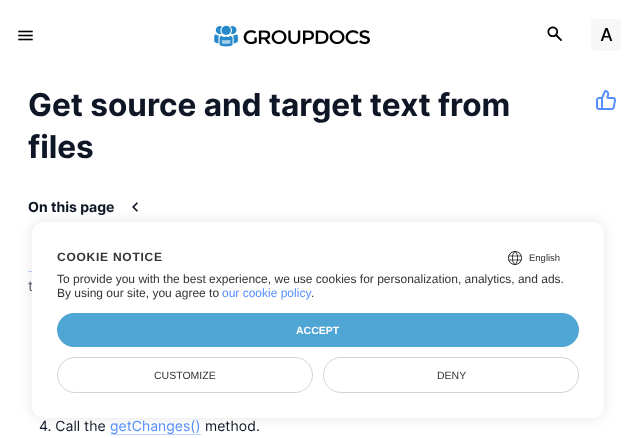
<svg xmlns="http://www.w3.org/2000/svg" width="636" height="438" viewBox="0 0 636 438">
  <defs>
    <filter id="blur1" x="-50%" y="-200%" width="200%" height="500%"><feGaussianBlur stdDeviation="6.5"/></filter>
  </defs>
  <rect width="100%" height="100%" fill="#ffffff"/>
  <image x="18" y="30" width="15" height="11" href="img1.png"/>
  <image x="214" y="25" width="24" height="22" href="img2.png"/>
  <image x="243" y="30" width="127" height="15" href="img3.png"/>
  <image x="547" y="26" width="15" height="16" href="img4.png"/>
  <rect x="591" y="19" width="30" height="32" rx="2" fill="#f7f7f7"/>
  <image x="600" y="28" width="13" height="13" href="img5.png"/>
  <text x="28" y="116" font-family="Inter" font-size="31.5" font-weight="bold" fill="#0f1727">Get source and target text from</text>
  <image x="596" y="90" width="20" height="20" href="img6.png"/>
  <text x="28" y="158" font-family="Inter" font-size="31.5" font-weight="bold" fill="#0f1727">files</text>
  <text x="28" y="212" font-family="Inter" font-size="14" font-weight="bold" fill="#0f1727">On this page</text>
  <image x="132" y="202" width="6" height="10" href="img7.png"/>
  <rect x="28" y="271" width="4" height="1" fill="#bbd2ff"/>
  <text x="28" y="291" font-family="Inter" font-size="14" fill="#575d68">t</text>
  <text x="39" y="431" font-family="Inter" font-size="14" fill="#0f1727">4. Call the</text>
  <text x="110" y="431" font-family="Inter" font-size="14" fill="#558fff">getChanges()</text>
  <rect x="110" y="434" width="91" height="1" fill="#bbd2ff"/>
  <text x="205" y="431" font-family="Inter" font-size="14" fill="#0f1727">method.</text>
  <rect x="32" y="222" width="572" height="196" rx="12" fill="#000000" fill-opacity="0.1" filter="url(#blur1)"/>
  <rect x="32" y="222" width="572" height="196" rx="12" fill="#ffffff"/>
  <text x="57" y="261" font-family="Liberation Sans" font-size="12" font-weight="bold" letter-spacing="0.75" fill="#333333">COOKIE NOTICE</text>
  <image x="508" y="251" width="14" height="14" href="img8.png"/>
  <text x="529" y="261" font-family="Liberation Sans" font-size="9.5" fill="#333333">English</text>
  <text x="57" y="283" font-family="Liberation Sans" font-size="12" fill="#333333">To provide you with the best experience, we use cookies for personalization, analytics, and ads.</text>
  <text x="57" y="297" font-family="Liberation Sans" font-size="12" fill="#333333">By using our site, you agree to</text>
  <text x="222" y="297" font-family="Liberation Sans" font-size="12" fill="#558fff">our cookie policy</text>
  <text x="311" y="297" font-family="Liberation Sans" font-size="12" fill="#333333">.</text>
  <rect x="57" y="313" width="522" height="34" rx="17" fill="#4fa5d3"/>
  <text x="296" y="334" font-family="Liberation Sans" font-size="10.5" font-weight="bold" fill="#ffffff">ACCEPT</text>
  <rect x="57.5" y="357.5" width="255" height="35" rx="17.5" fill="none" stroke="#d3d3d3"/>
  <text x="154" y="379" font-family="Liberation Sans" font-size="10.5" fill="#333333">CUSTOMIZE</text>
  <rect x="323.5" y="357.5" width="255" height="35" rx="17.5" fill="none" stroke="#d3d3d3"/>
  <text x="437" y="379" font-family="Liberation Sans" font-size="10.5" fill="#333333">DENY</text>
</svg>
